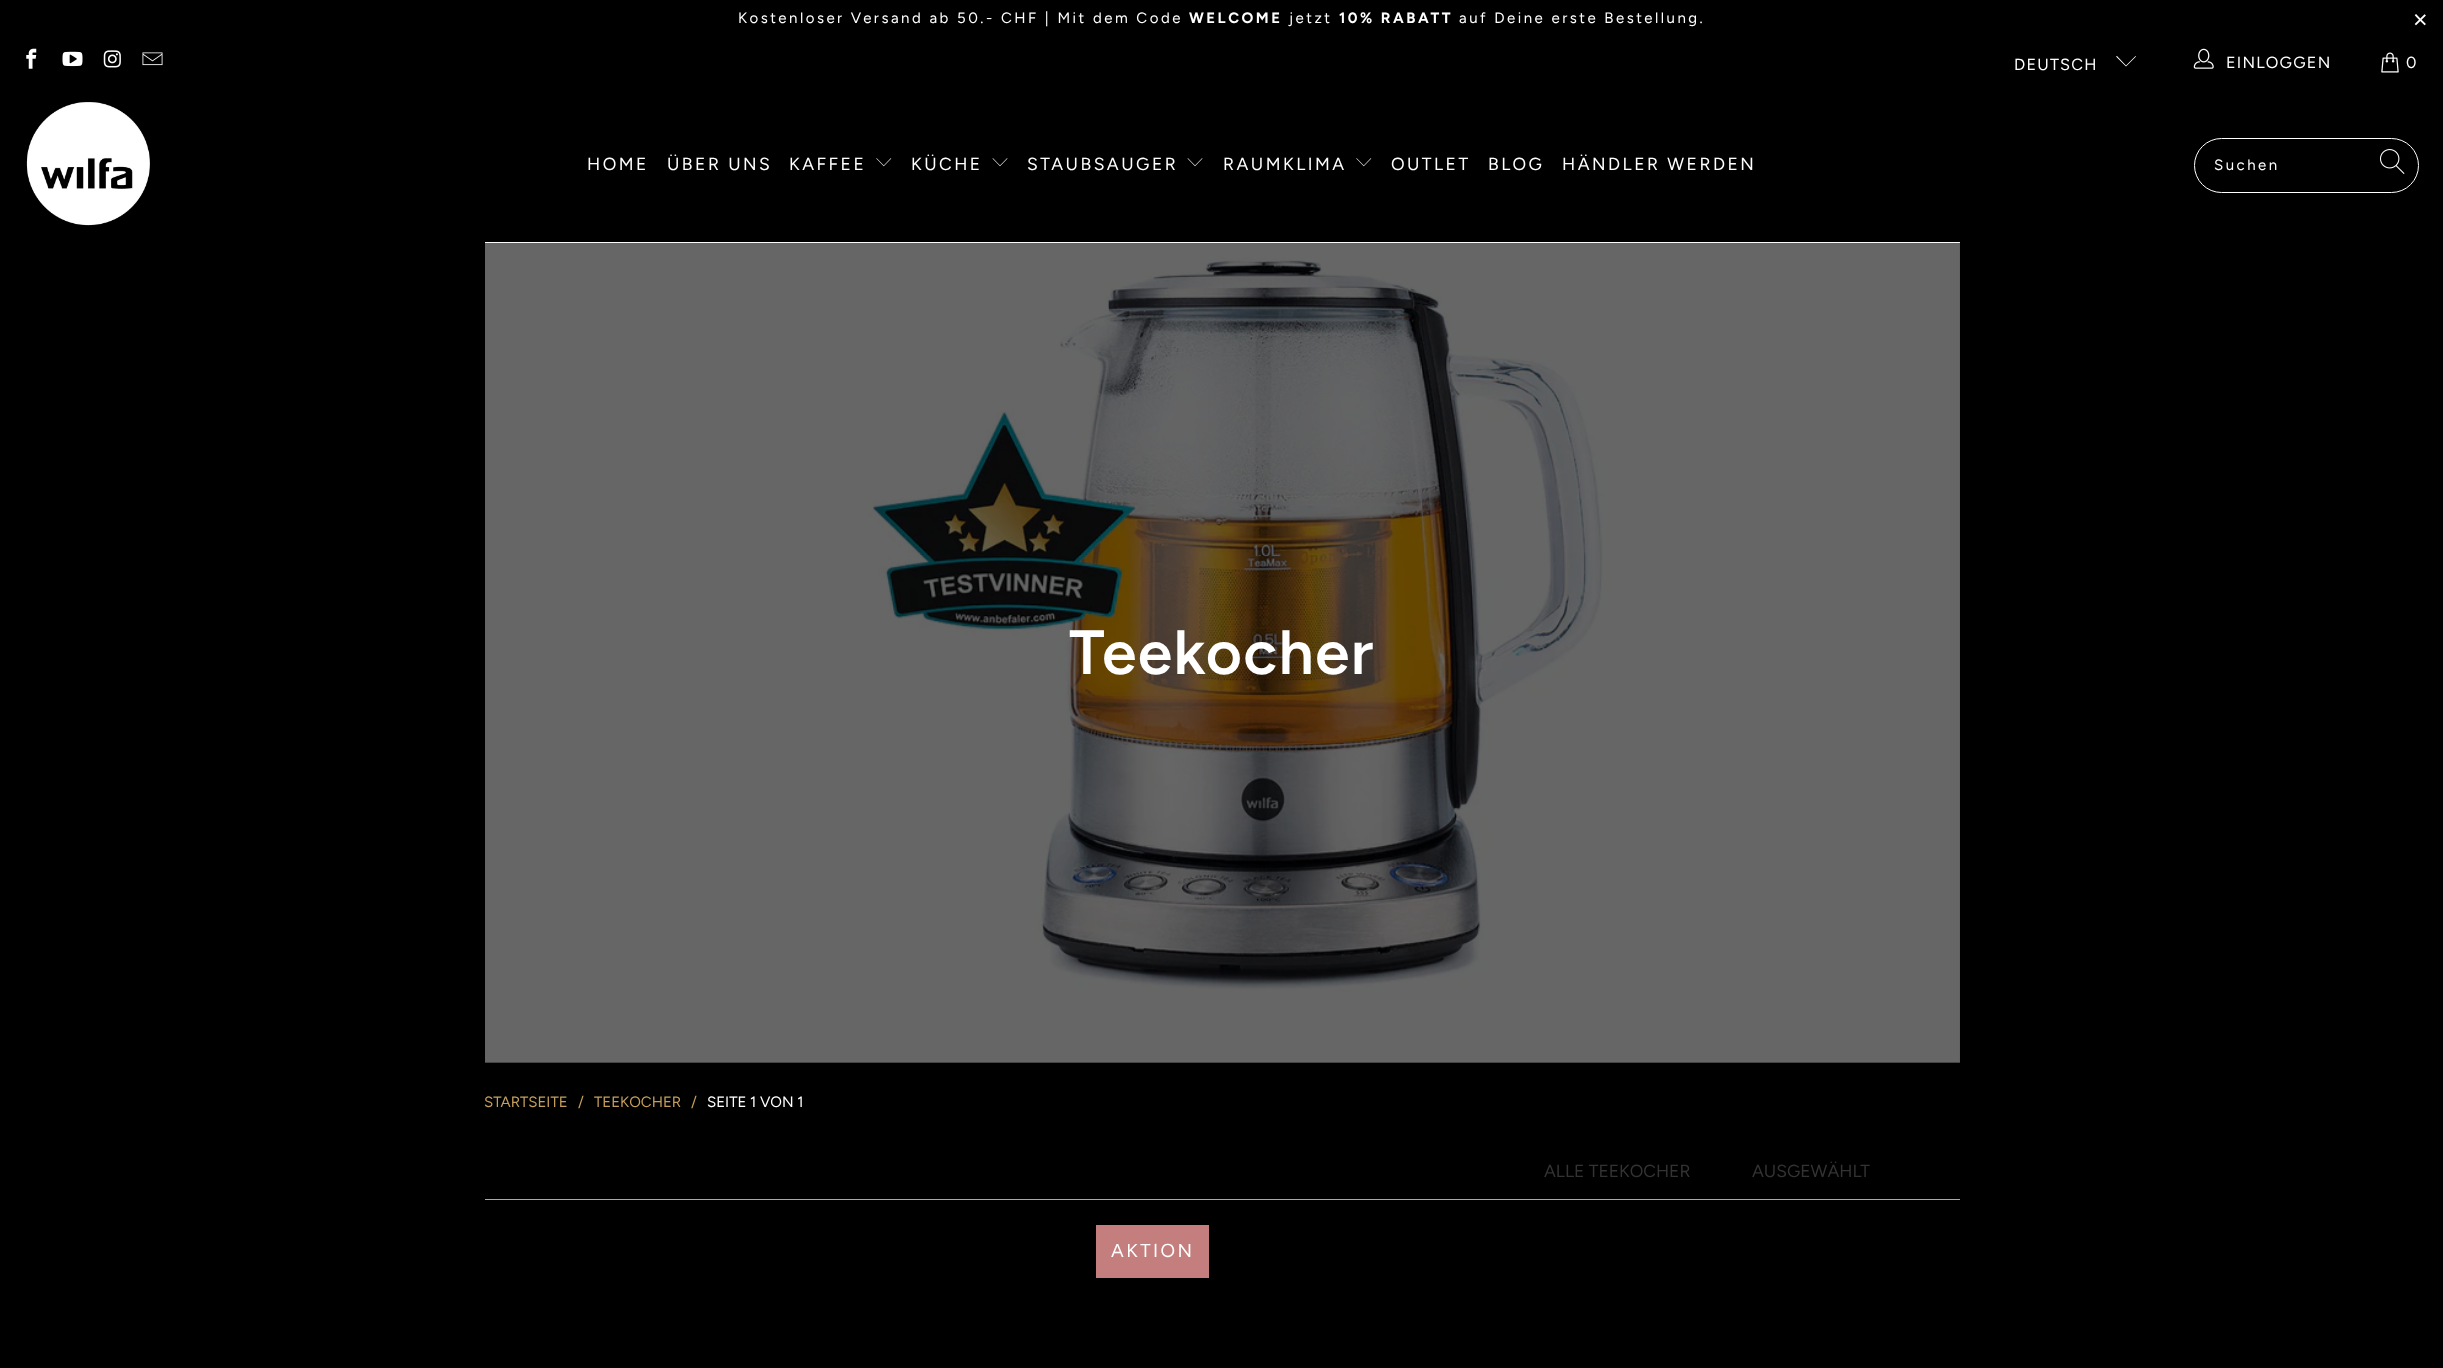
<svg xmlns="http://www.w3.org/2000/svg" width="2443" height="1368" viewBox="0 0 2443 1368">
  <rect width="100%" height="100%" fill="#000000"/>
  <text x="738" y="23" font-family="Figtree" font-size="15" letter-spacing="2.5" fill="#ffffff">Kostenloser Versand ab 50.- CHF | Mit dem Code</text>
  <text x="1189" y="23" font-family="Figtree" font-size="15" font-weight="bold" letter-spacing="2.5" fill="#ffffff">WELCOME</text>
  <text x="1289" y="23" font-family="Figtree" font-size="15" letter-spacing="2.5" fill="#ffffff">jetzt</text>
  <text x="1339" y="23" font-family="Figtree" font-size="15" font-weight="bold" letter-spacing="2.5" fill="#ffffff">10% RABATT</text>
  <text x="1459" y="23" font-family="Figtree" font-size="15" letter-spacing="2.5" fill="#ffffff">auf Deine erste Bestellung.</text>
  <text x="2413" y="28" font-family="Liberation Sans" font-size="25" letter-spacing="2.5" fill="#ffffff">×</text>
  <image x="26" y="48" width="11" height="21" href="img1.png"/>
  <image x="62" y="51" width="21" height="16" href="img2.png"/>
  <image x="103" y="50" width="18" height="18" href="img3.png"/>
  <image x="142" y="52" width="21" height="14" href="img4.png"/>
  <text x="2014" y="70" font-family="Figtree" font-size="16.25" letter-spacing="1.25" fill="#ffffff">DEUTSCH</text>
  <path d="M2126 66.5L2116 56.5L2117 56L2126 65.5L2135.5 56L2136 56.5Z" fill="#ffffff"/>
  <image x="2193" y="48" width="21" height="21" href="img5.png"/>
  <text x="2226" y="68" font-family="Figtree" font-size="16.25" letter-spacing="1.25" fill="#ffffff">EINLOGGEN</text>
  <image x="2381" y="52" width="18" height="21" href="img6.png"/>
  <text x="2406" y="68" font-family="Figtree" font-size="16.25" letter-spacing="1.25" fill="#ffffff">0</text>
  <image x="26" y="102" width="124" height="124" href="img7.png"/>
  <text x="587" y="170" font-family="Figtree" font-size="17.5" letter-spacing="2.5" fill="#ffffff">HOME</text>
  <text x="667" y="170" font-family="Figtree" font-size="17.5" letter-spacing="2.5" fill="#ffffff">ÜBER UNS</text>
  <text x="789" y="170" font-family="Figtree" font-size="17.5" letter-spacing="2.5" fill="#ffffff">KAFFEE</text>
  <image x="876" y="158" width="16" height="9" href="img8.png"/>
  <text x="911" y="170" font-family="Figtree" font-size="17.5" letter-spacing="2.5" fill="#ffffff">KÜCHE</text>
  <image x="992" y="158" width="16" height="9" href="img9.png"/>
  <text x="1027" y="170" font-family="Figtree" font-size="17.5" letter-spacing="2.5" fill="#ffffff">STAUBSAUGER</text>
  <image x="1187" y="158" width="16" height="9" href="img9.png"/>
  <text x="1223" y="170" font-family="Figtree" font-size="17.5" letter-spacing="2.5" fill="#ffffff">RAUMKLIMA</text>
  <image x="1356" y="158" width="16" height="9" href="img8.png"/>
  <text x="1391" y="170" font-family="Figtree" font-size="17.5" letter-spacing="2.5" fill="#ffffff">OUTLET</text>
  <text x="1488" y="170" font-family="Figtree" font-size="17.5" letter-spacing="2.5" fill="#ffffff">BLOG</text>
  <text x="1562" y="170" font-family="Figtree" font-size="17.5" letter-spacing="2.5" fill="#ffffff">HÄNDLER WERDEN</text>
  <rect x="2194.5" y="138.5" width="224" height="54" rx="27" fill="none" stroke="#ffffff"/>
  <text x="2214" y="170" font-family="Figtree" font-size="15" letter-spacing="2.5" fill="#ffffff">Suchen</text>
  <image x="2380" y="149" width="25" height="25" href="img10.png"/>
  <rect x="485" y="243" width="1475" height="820" fill="#292929"/>
  <image x="485" y="242" width="1475" height="821" href="img11.png"/>
  <text x="1069" y="674" font-family="Figtree" font-size="62.5" font-weight="600" letter-spacing="1.25" fill="#ffffff">Teekocher</text>
  <text x="484" y="1107" font-family="Figtree" font-size="15" fill="#c79f5c">STARTSEITE</text>
  <text x="578" y="1107" font-family="Figtree" font-size="15" fill="#c79f5c">/</text>
  <text x="594" y="1107" font-family="Figtree" font-size="15" fill="#c79f5c">TEEKOCHER</text>
  <text x="691" y="1107" font-family="Figtree" font-size="15" fill="#c79f5c">/</text>
  <text x="707" y="1107" font-family="Figtree" font-size="15" fill="#ffffff">SEITE 1 VON 1</text>
  <text x="1544" y="1177" font-family="Figtree" font-size="17.5" fill="#333333">ALLE TEEKOCHER</text>
  <text x="1752" y="1177" font-family="Figtree" font-size="17.5" fill="#333333">AUSGEWÄHLT</text>
  <rect x="485" y="1199" width="1475" height="1" fill="#aaaaaa"/>
  <rect x="1096" y="1225" width="113" height="53" fill="#c57e7e"/>
  <text x="1111" y="1257" font-family="Figtree" font-size="18.75" letter-spacing="2.5" fill="#ffffff">AKTION</text>
</svg>
